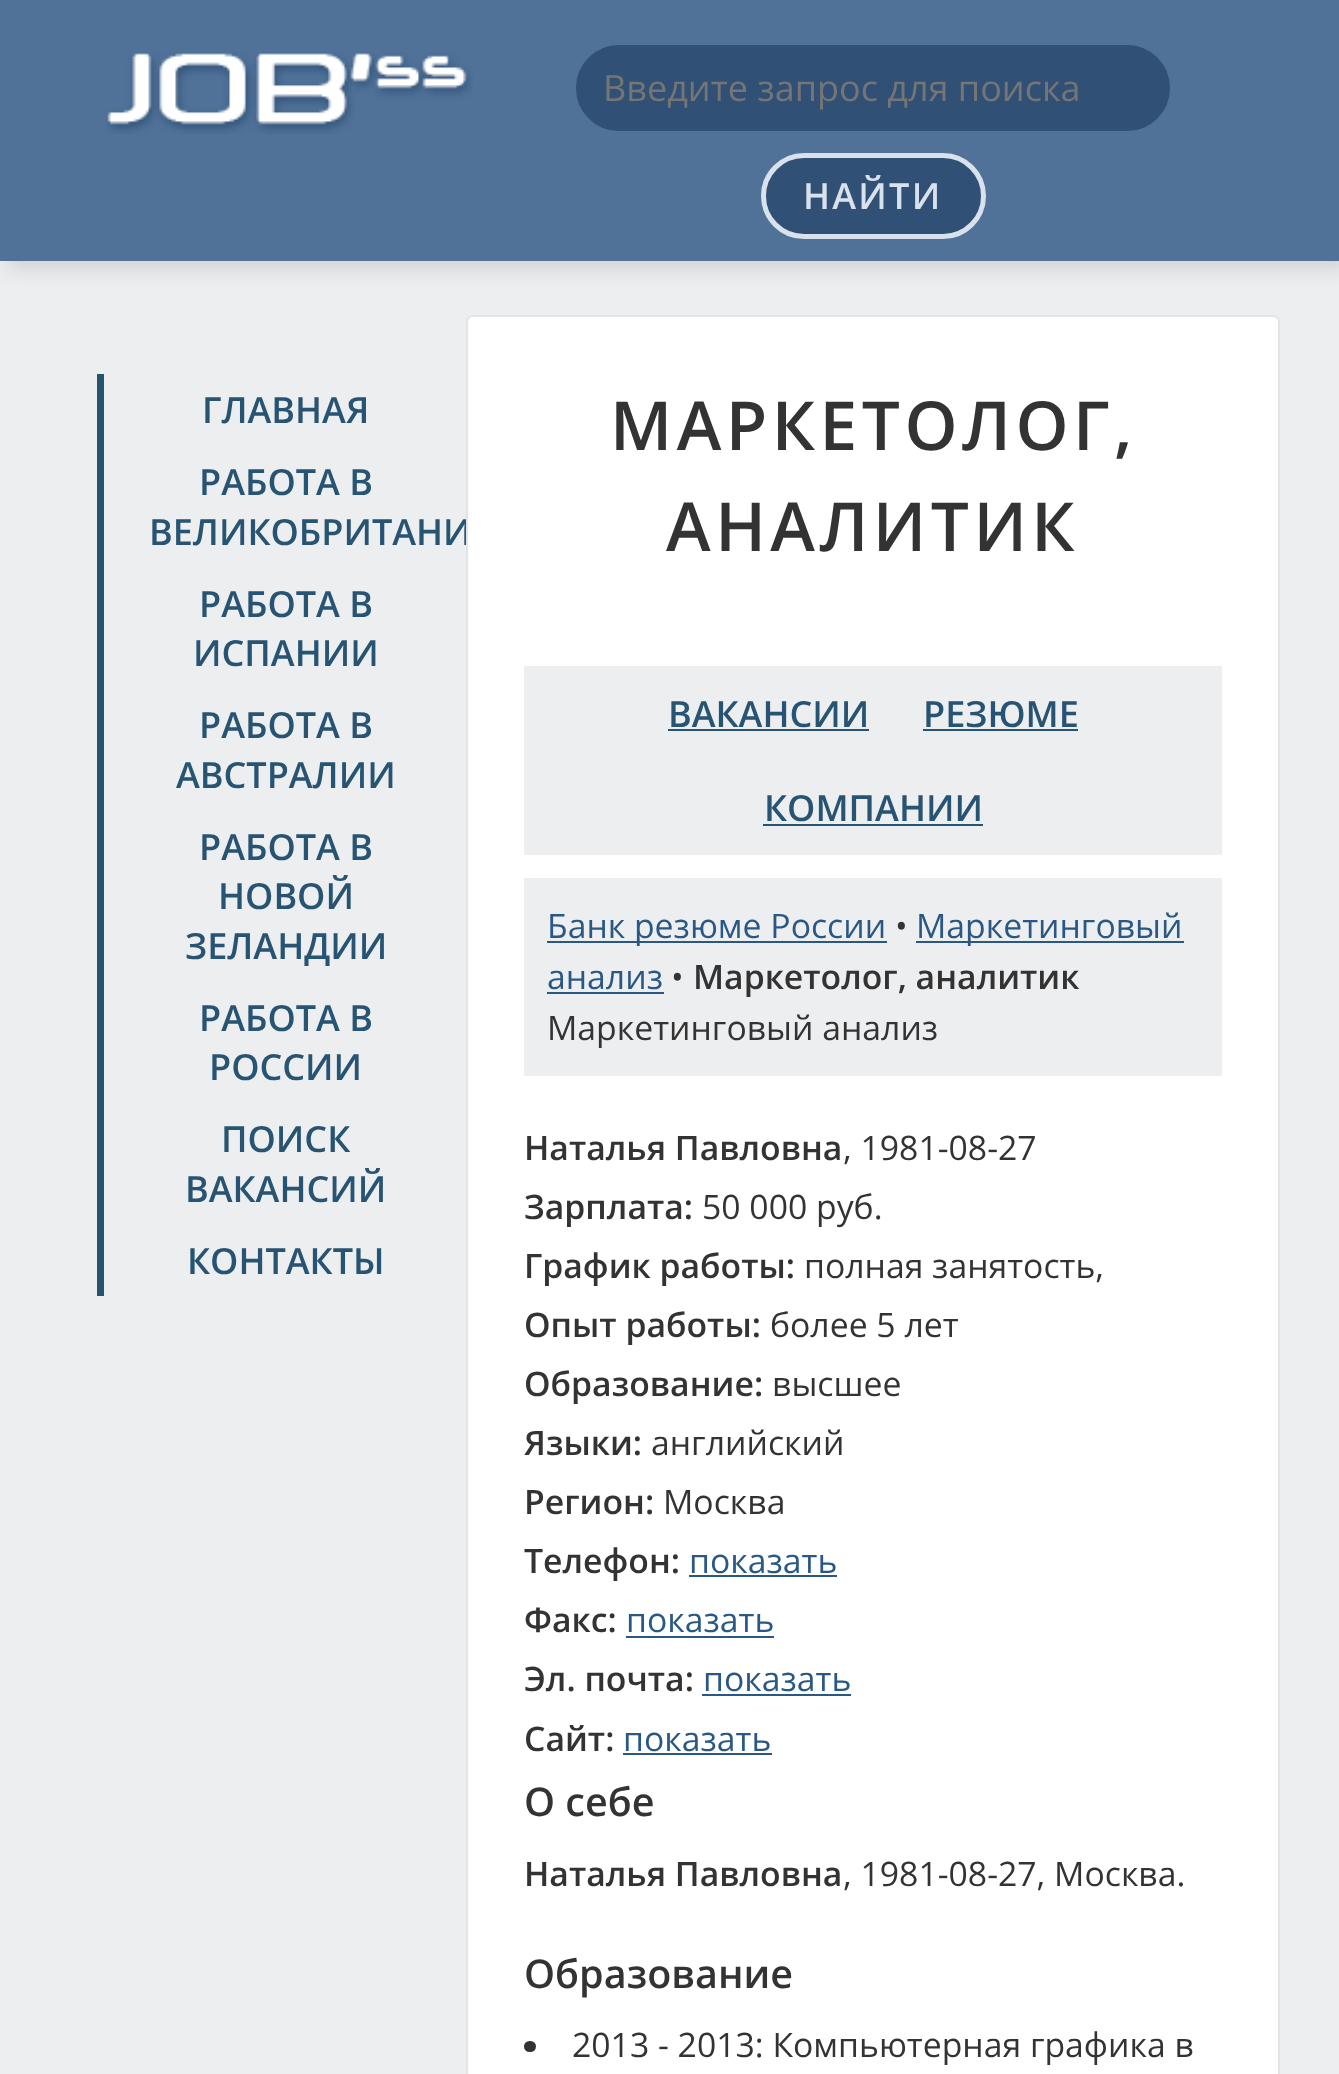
<svg xmlns="http://www.w3.org/2000/svg" width="1339" height="2074" viewBox="0 0 1339 2074">
  <defs>
    <filter id="blur1" x="-50%" y="-200%" width="200%" height="500%"><feGaussianBlur stdDeviation="9"/></filter>
  </defs>
  <rect width="100%" height="100%" fill="#edeef0"/>
  <rect x="7" y="9" width="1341" height="261" fill="#000000" fill-opacity="0.11" filter="url(#blur1)"/>
  <rect x="0" y="0" width="1339" height="261" fill="#507299"/>
  <image x="106" y="52" width="367" height="82" href="img1.png"/>
  <rect x="578.5" y="47.5" width="589" height="81" rx="40.5" fill="#305075" stroke="#305075" stroke-width="5"/>
  <text x="603" y="101" font-family="Open Sans" font-size="36" fill="#757575">Введите запрос для поиска</text>
  <rect x="763.5" y="155.5" width="220" height="81" rx="40.5" fill="#305075" stroke="#d9e2ec" stroke-width="5"/>
  <text x="803" y="209" font-family="Open Sans" font-size="36" font-weight="600" letter-spacing="2.25" fill="#d9e2ec">НАЙТИ</text>
  <rect x="97" y="374" width="7" height="922" fill="#285473"/>
  <text x="202" y="423" font-family="Open Sans" font-size="36" font-weight="600" fill="#285473">ГЛАВНАЯ</text>
  <text x="199" y="495" font-family="Open Sans" font-size="36" font-weight="600" fill="#285473">РАБОТА В</text>
  <text x="149" y="545" font-family="Open Sans" font-size="36" font-weight="600" fill="#285473">ВЕЛИКОБРИТАНИ</text>
  <text x="199" y="617" font-family="Open Sans" font-size="36" font-weight="600" fill="#285473">РАБОТА В</text>
  <text x="193" y="666" font-family="Open Sans" font-size="36" font-weight="600" fill="#285473">ИСПАНИИ</text>
  <text x="199" y="738" font-family="Open Sans" font-size="36" font-weight="600" fill="#285473">РАБОТА В</text>
  <text x="176" y="788" font-family="Open Sans" font-size="36" font-weight="600" fill="#285473">АВСТРАЛИИ</text>
  <text x="199" y="860" font-family="Open Sans" font-size="36" font-weight="600" fill="#285473">РАБОТА В</text>
  <text x="218" y="909" font-family="Open Sans" font-size="36" font-weight="600" fill="#285473">НОВОЙ</text>
  <text x="185" y="959" font-family="Open Sans" font-size="36" font-weight="600" fill="#285473">ЗЕЛАНДИИ</text>
  <text x="199" y="1031" font-family="Open Sans" font-size="36" font-weight="600" fill="#285473">РАБОТА В</text>
  <text x="209" y="1080" font-family="Open Sans" font-size="36" font-weight="600" fill="#285473">РОССИИ</text>
  <text x="221" y="1152" font-family="Open Sans" font-size="36" font-weight="600" fill="#285473">ПОИСК</text>
  <text x="185" y="1202" font-family="Open Sans" font-size="36" font-weight="600" fill="#285473">ВАКАНСИЙ</text>
  <text x="187" y="1274" font-family="Open Sans" font-size="36" font-weight="600" fill="#285473">КОНТАКТЫ</text>
  <rect x="467" y="316" width="812" height="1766" rx="6" fill="none" stroke="#e3e4e8" stroke-width="2"/>
  <rect x="468" y="317" width="810" height="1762" rx="5" fill="#ffffff"/>
  <text x="610" y="450" font-family="Open Sans" font-size="67.5" font-weight="600" letter-spacing="4.5" fill="#333333">МАРКЕТОЛОГ,</text>
  <text x="666" y="551" font-family="Open Sans" font-size="67.5" font-weight="600" letter-spacing="4.5" fill="#333333">АНАЛИТИК</text>
  <rect x="524" y="666" width="698" height="189" fill="#edeef0"/>
  <text x="668" y="727" font-family="Open Sans" font-size="36" font-weight="600" fill="#285473">ВАКАНСИИ</text>
  <rect x="668" y="729" width="201" height="2" fill="#285473"/>
  <text x="923" y="727" font-family="Open Sans" font-size="36" font-weight="600" fill="#285473">РЕЗЮМЕ</text>
  <rect x="923" y="729" width="155" height="2" fill="#285473"/>
  <text x="764" y="821" font-family="Open Sans" font-size="36" font-weight="600" fill="#285473">КОМПАНИИ</text>
  <rect x="763" y="824" width="220" height="2" fill="#285473"/>
  <rect x="524" y="878" width="698" height="198" fill="#edeef0"/>
  <rect x="547" y="941" width="340" height="2" fill="#2a5885"/>
  <text x="547" y="938" font-family="Open Sans" font-size="33.75" fill="#2a5885">Банк резюме России</text>
  <text x="895" y="938" font-family="Open Sans" font-size="33.75" fill="#333333">•</text>
  <rect x="916" y="941" width="268" height="2" fill="#2a5885"/>
  <text x="916" y="938" font-family="Open Sans" font-size="33.75" fill="#2a5885">Маркетинговый</text>
  <text x="547" y="989" font-family="Open Sans" font-size="33.75" fill="#2a5885">анализ</text>
  <rect x="547" y="992" width="117" height="2" fill="#2a5885"/>
  <text x="671" y="989" font-family="Open Sans" font-size="33.75" fill="#333333">•</text>
  <text x="693" y="989" font-family="Open Sans" font-size="33.75" font-weight="600" fill="#333333">Маркетолог, аналитик</text>
  <text x="547" y="1040" font-family="Open Sans" font-size="33.75" fill="#333333">Маркетинговый анализ</text>
  <text x="524" y="1160" font-family="Open Sans" font-size="33.75" font-weight="600" fill="#333333">Наталья Павловна</text>
  <text x="843" y="1160" font-family="Open Sans" font-size="33.75" fill="#333333">, 1981-08-27</text>
  <text x="524" y="1219" font-family="Open Sans" font-size="33.75" font-weight="600" fill="#333333">Зарплата:</text>
  <text x="702" y="1219" font-family="Open Sans" font-size="33.75" fill="#333333">50 000 руб.</text>
  <text x="524" y="1278" font-family="Open Sans" font-size="33.75" font-weight="600" fill="#333333">График работы:</text>
  <text x="804" y="1278" font-family="Open Sans" font-size="33.75" fill="#333333">полная занятость,</text>
  <text x="524" y="1337" font-family="Open Sans" font-size="33.75" font-weight="600" fill="#333333">Опыт работы:</text>
  <text x="770" y="1337" font-family="Open Sans" font-size="33.75" fill="#333333">более 5 лет</text>
  <text x="524" y="1396" font-family="Open Sans" font-size="33.75" font-weight="600" fill="#333333">Образование:</text>
  <text x="772" y="1396" font-family="Open Sans" font-size="33.75" fill="#333333">высшее</text>
  <text x="524" y="1455" font-family="Open Sans" font-size="33.75" font-weight="600" fill="#333333">Языки:</text>
  <text x="651" y="1455" font-family="Open Sans" font-size="33.75" fill="#333333">английский</text>
  <text x="524" y="1514" font-family="Open Sans" font-size="33.75" font-weight="600" fill="#333333">Регион:</text>
  <text x="663" y="1514" font-family="Open Sans" font-size="33.75" fill="#333333">Москва</text>
  <text x="524" y="1573" font-family="Open Sans" font-size="33.75" font-weight="600" fill="#333333">Телефон:</text>
  <text x="689" y="1573" font-family="Open Sans" font-size="33.75" fill="#2a5885">показать</text>
  <rect x="689" y="1575" width="148" height="2" fill="#2a5885"/>
  <text x="524" y="1632" font-family="Open Sans" font-size="33.75" font-weight="600" fill="#333333">Факс:</text>
  <text x="626" y="1632" font-family="Open Sans" font-size="33.75" fill="#2a5885">показать</text>
  <rect x="626" y="1636" width="148" height="2" fill="#2a5885"/>
  <text x="524" y="1691" font-family="Open Sans" font-size="33.75" font-weight="600" fill="#333333">Эл. почта:</text>
  <text x="703" y="1691" font-family="Open Sans" font-size="33.75" fill="#2a5885">показать</text>
  <rect x="702" y="1694" width="149" height="2" fill="#2a5885"/>
  <text x="524" y="1751" font-family="Open Sans" font-size="33.75" font-weight="600" fill="#333333">Сайт:</text>
  <text x="623" y="1751" font-family="Open Sans" font-size="33.75" fill="#2a5885">показать</text>
  <rect x="623" y="1753" width="149" height="2" fill="#2a5885"/>
  <text x="524" y="1816" font-family="Open Sans" font-size="39.5" font-weight="600" fill="#333333">О себе</text>
  <text x="524" y="1886" font-family="Open Sans" font-size="33.75" font-weight="600" fill="#333333">Наталья Павловна</text>
  <text x="843" y="1886" font-family="Open Sans" font-size="33.75" fill="#333333">, 1981-08-27, Москва.</text>
  <text x="524" y="1988" font-family="Open Sans" font-size="39.5" font-weight="600" fill="#333333">Образование</text>
  <rect x="524" y="2041" width="12" height="11" rx="5.5" fill="#333333"/>
  <text x="572" y="2057" font-family="Open Sans" font-size="33.75" fill="#333333">2013 - 2013: Компьютерная графика в</text>
</svg>
